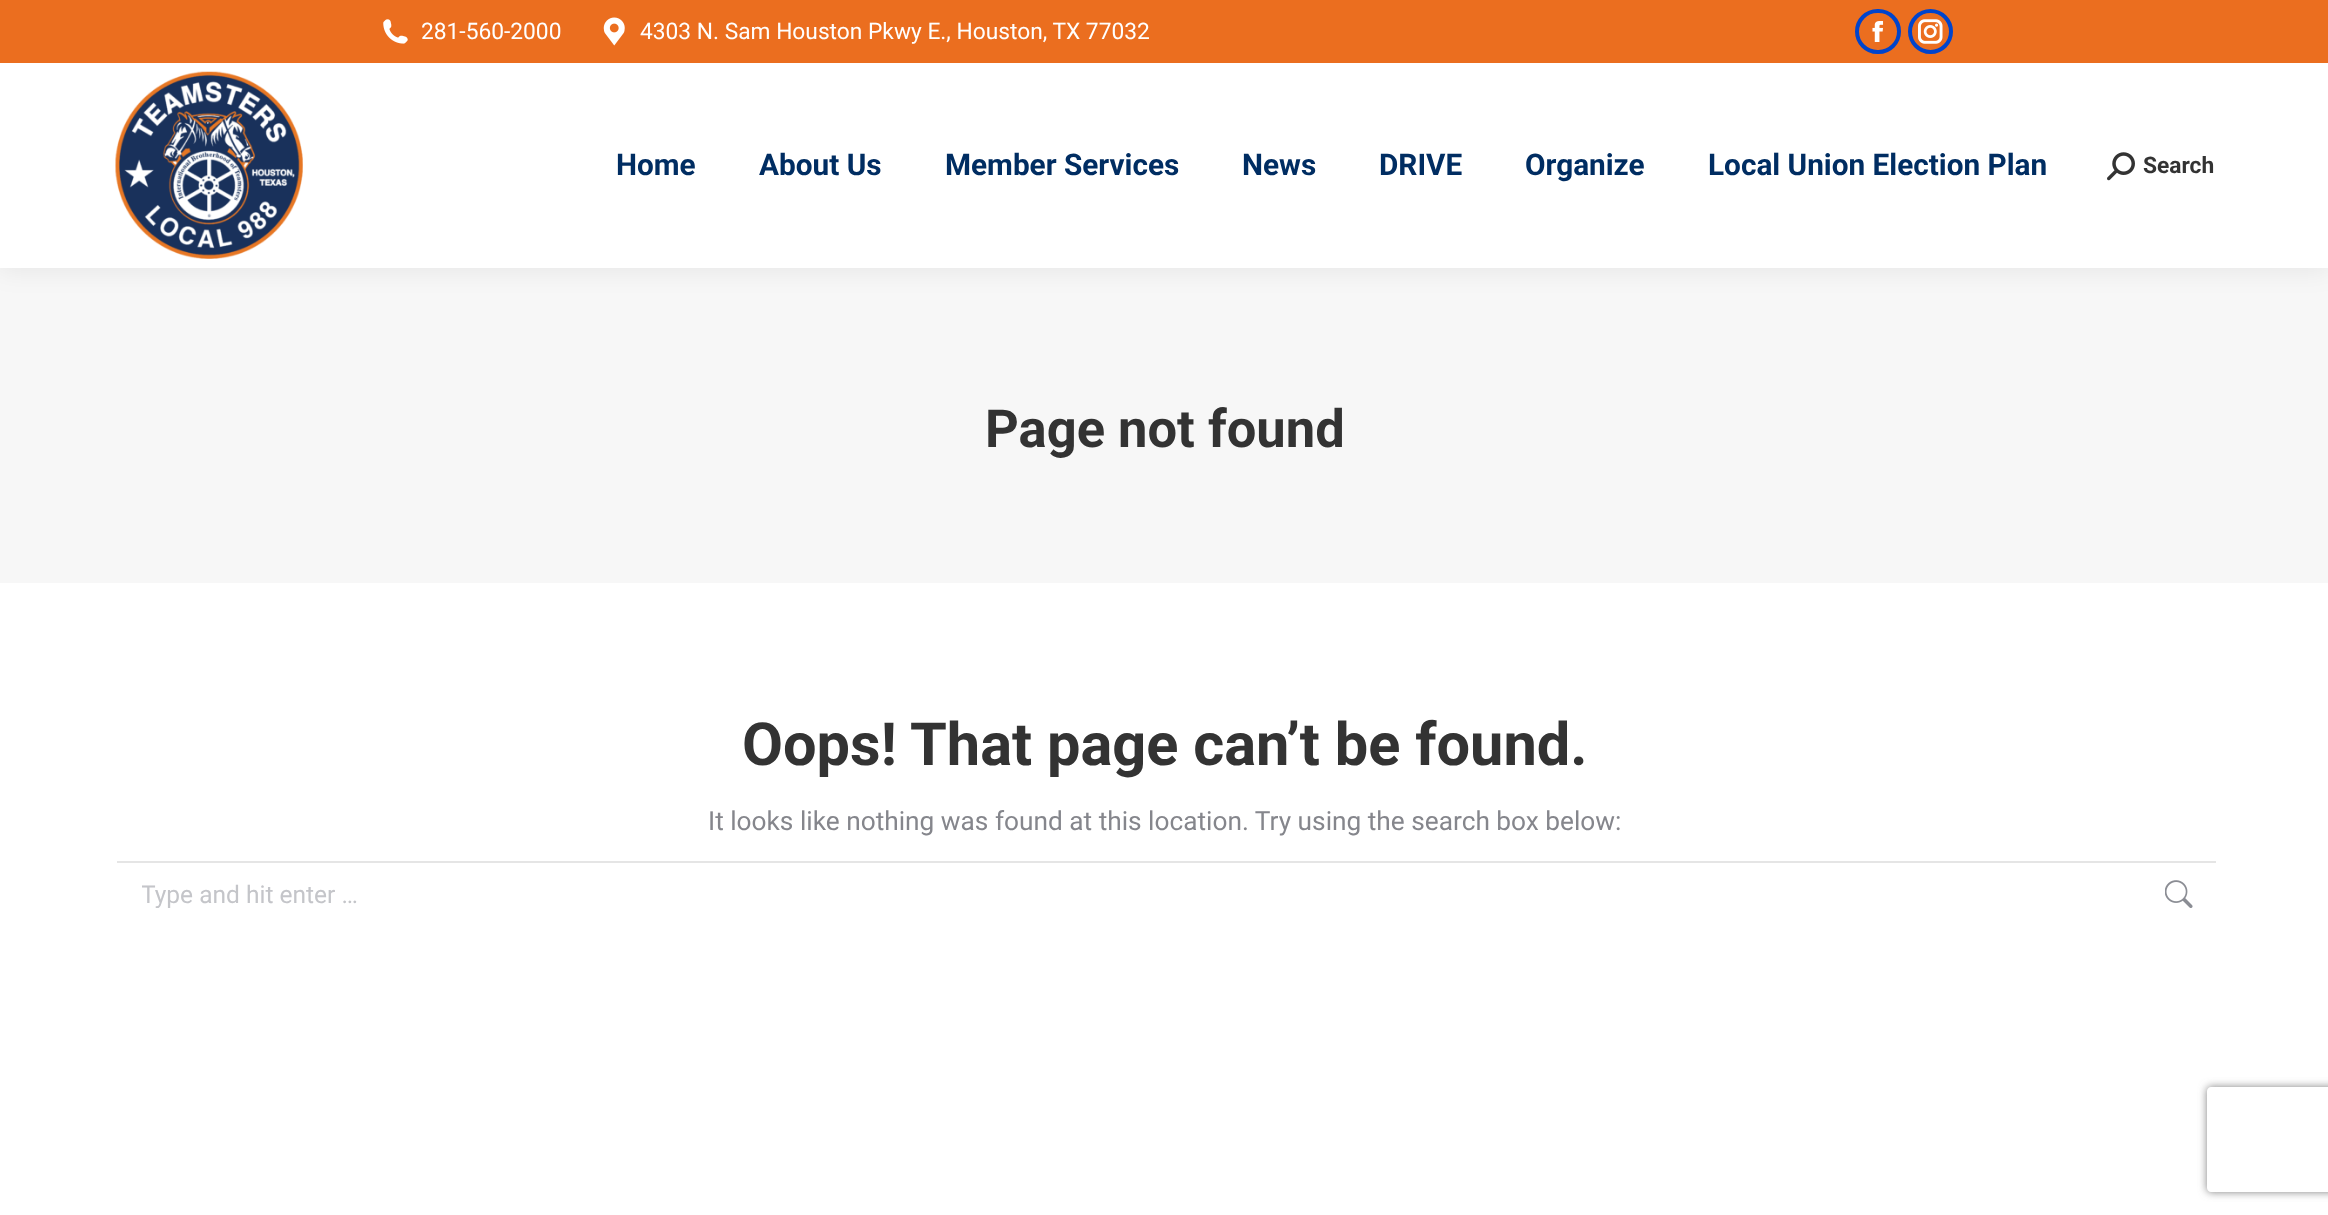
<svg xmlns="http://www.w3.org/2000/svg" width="2328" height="1215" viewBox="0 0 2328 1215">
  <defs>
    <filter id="blur1" x="-50%" y="-200%" width="200%" height="500%"><feGaussianBlur stdDeviation="13"/></filter>
    <clipPath id="clip1"><rect x="142" y="880" width="2021" height="28"/></clipPath>
    <clipPath id="clip2"><path d="M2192 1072H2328V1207H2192ZM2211 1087H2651C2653 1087 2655 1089 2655 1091V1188C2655 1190 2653 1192 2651 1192H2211C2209 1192 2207 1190 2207 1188V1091C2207 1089 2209 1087 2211 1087Z" clip-rule="evenodd"/></clipPath>
    <filter id="blur2" x="-50%" y="-200%" width="200%" height="500%"><feGaussianBlur stdDeviation="4.5"/></filter>
  </defs>
  <rect width="100%" height="100%" fill="#ffffff"/>
  <rect x="0" y="268" width="2328" height="315" fill="#f7f7f7"/>
  <rect x="-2" y="-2" width="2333" height="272" fill="#000000" fill-opacity="0.07" filter="url(#blur1)"/>
  <rect x="0" y="63" width="2328" height="205" fill="#ffffff"/>
  <rect x="0" y="0" width="2328" height="63" fill="#eb6e1f"/>
  <image x="383" y="19" width="25" height="25" href="img1.png"/>
  <text x="421" y="39" font-family="Roboto" font-size="22.75" fill="#ffffff">281-560-2000</text>
  <image x="603" y="17" width="22" height="29" href="img2.png"/>
  <text x="640" y="39" font-family="Roboto" font-size="22.75" fill="#ffffff">4303 N. Sam Houston Pkwy E., Houston, TX 77032</text>
  <rect x="1857" y="11" width="42" height="41" rx="20.5" fill="none" stroke="#0044cc" stroke-width="4"/>
  <image x="1872" y="21" width="12" height="21" href="img3.png"/>
  <circle cx="1930.5" cy="31.5" r="20.5" fill="none" stroke="#0044cc" stroke-width="4"/>
  <image x="1918" y="19" width="25" height="25" href="img4.png"/>
  <image x="115" y="71" width="188" height="188" href="img5.png"/>
  <text x="616" y="175" font-family="Roboto" font-size="29.75" font-weight="bold" fill="#002d62">Home</text>
  <text x="759" y="175" font-family="Roboto" font-size="29.75" font-weight="bold" fill="#002d62">About Us</text>
  <text x="945" y="175" font-family="Roboto" font-size="29.75" font-weight="bold" fill="#002d62">Member Services</text>
  <text x="1242" y="175" font-family="Roboto" font-size="29.75" font-weight="bold" fill="#002d62">News</text>
  <text x="1379" y="175" font-family="Roboto" font-size="29.75" font-weight="bold" fill="#002d62">DRIVE</text>
  <text x="1525" y="175" font-family="Roboto" font-size="29.75" font-weight="bold" fill="#002d62">Organize</text>
  <text x="1708" y="175" font-family="Roboto" font-size="29.75" font-weight="bold" fill="#002d62">Local Union Election Plan</text>
  <image x="2107" y="152" width="28" height="29" href="img6.png"/>
  <text x="2143" y="173" font-family="Roboto" font-size="22.75" font-weight="bold" fill="#333333">Search</text>
  <text x="985" y="447" font-family="Roboto" font-size="52.5" font-weight="bold" fill="#333333">Page not found</text>
  <text x="742" y="765" font-family="Roboto" font-size="59.5" font-weight="bold" fill="#333333">Oops! That page can’t be found.</text>
  <text x="708" y="830" font-family="Roboto" font-size="26.25" fill="#85868c">It looks like nothing was found at this location. Try using the search box below:</text>
  <rect x="117" y="861" width="2099" height="2" fill="#e5e5e5"/>
  <g clip-path="url(#clip1)">
    <text x="141" y="903" font-family="Roboto" font-size="24.5" fill="#c4c5c9">Type and hit enter …</text>
  </g>
  <image x="2165" y="880" width="28" height="28" href="img7.png"/>
  <g clip-path="url(#clip2)">
    <rect x="2207" y="1087" width="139" height="105" rx="4" fill="#808080" filter="url(#blur2)"/>
  </g>
</svg>
